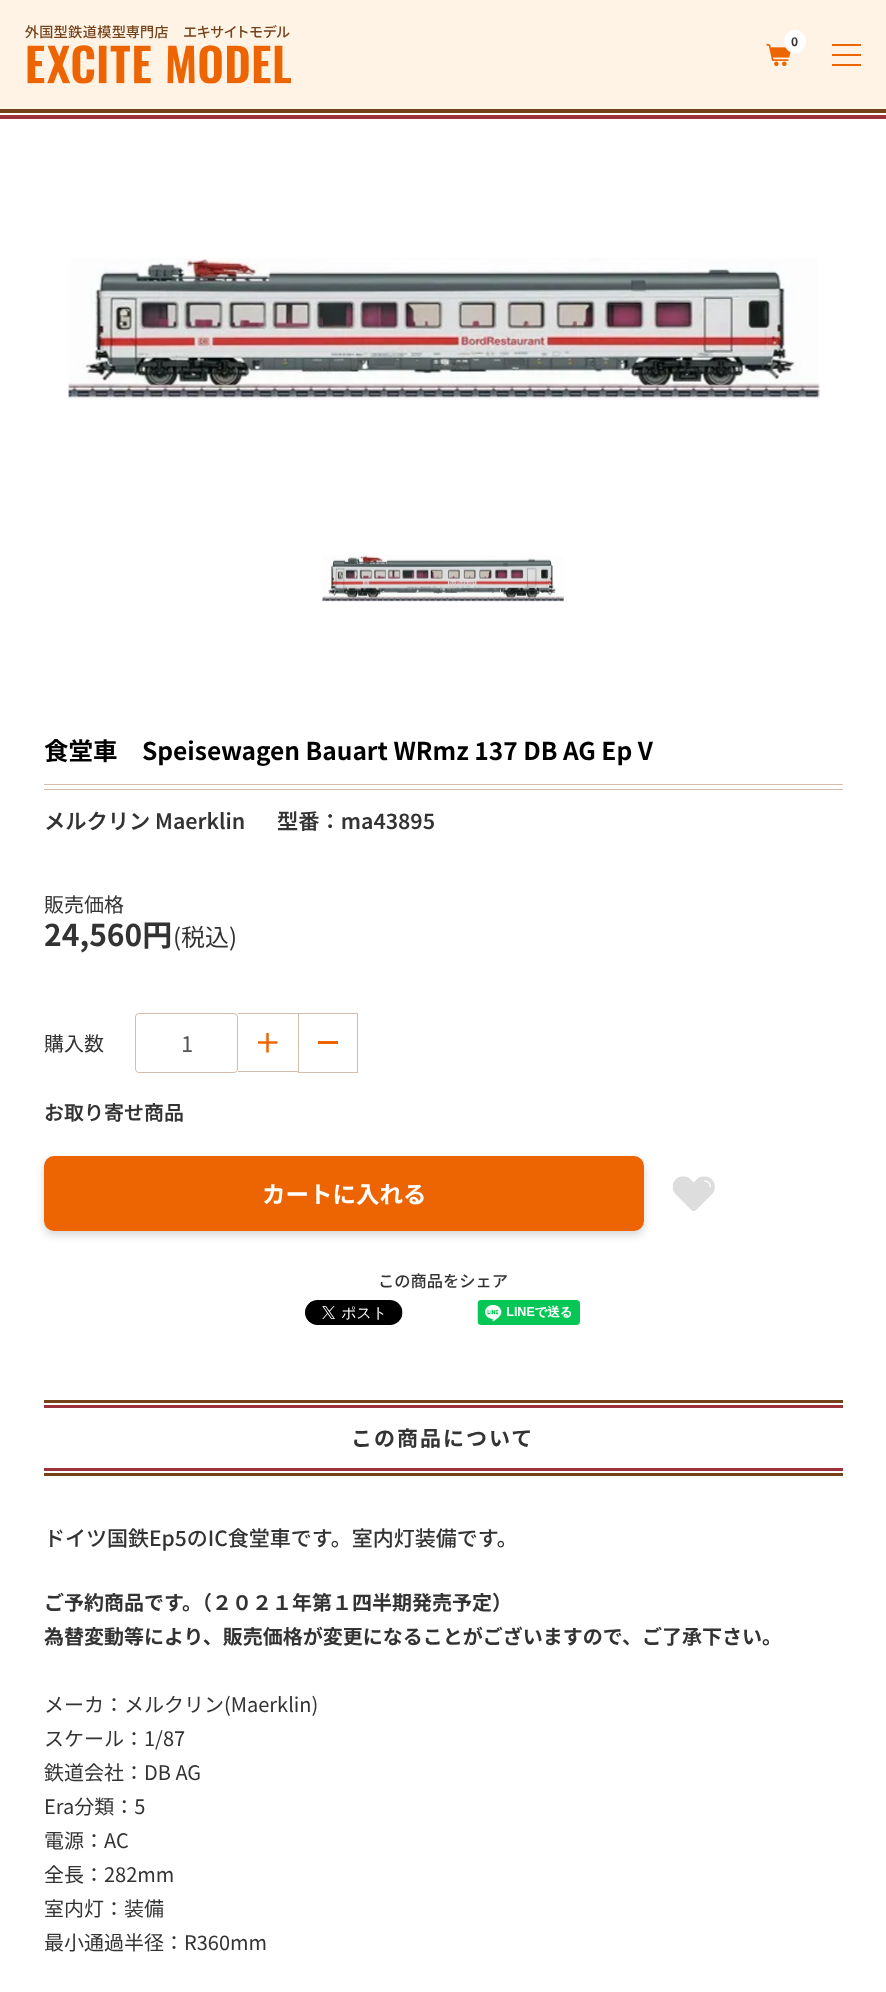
<svg xmlns="http://www.w3.org/2000/svg" width="886" height="1992" viewBox="0 0 886 1992">
  <defs>
    <filter id="blur1" x="-50%" y="-200%" width="200%" height="500%"><feGaussianBlur stdDeviation="4"/></filter>
  </defs>
  <rect width="100%" height="100%" fill="#ffffff"/>
  <rect x="0" y="0" width="886" height="109" fill="#fff3e5"/>
  <image x="25" y="25" width="266" height="59" href="img1.png"/>
  <image x="766" y="43" width="25" height="24" href="img2.png"/>
  <rect x="784" y="30" width="22" height="23" rx="11" fill="#ffffff"/>
  <text x="791" y="46" font-family="Noto Sans JP" font-size="12" font-weight="bold" fill="#333333">0</text>
  <rect x="832" y="44" width="29" height="2" fill="#ed6503"/>
  <rect x="832" y="54" width="29" height="2" fill="#ed6503"/>
  <rect x="832" y="64" width="29" height="2" fill="#ed6503"/>
  <rect x="0" y="109" width="886" height="4" fill="#75431b"/>
  <rect x="0" y="115" width="886" height="4" fill="#9e323a"/>
  <image x="68" y="258" width="752" height="142" href="img3.png"/>
  <image x="322" y="555" width="242" height="47" href="img4.png"/>
  <text x="44" y="760" font-family="Noto Sans JP" font-size="24.5" font-weight="bold" fill="#000000">食堂車　Speisewagen Bauart WRmz 137 DB AG Ep V</text>
  <rect x="44" y="784" width="799" height="1" fill="#d3bdaf"/>
  <rect x="44" y="789" width="799" height="1" fill="#d3bdaf"/>
  <text x="44" y="829" font-family="Noto Sans JP" font-size="21.25" font-weight="600" fill="#333333">メルクリン Maerklin</text>
  <text x="277" y="829" font-family="Noto Sans JP" font-size="21.25" font-weight="600" fill="#333333">型番：ma43895</text>
  <text x="44" y="912" font-family="Noto Sans JP" font-size="20" fill="#333333">販売価格</text>
  <text x="44" y="946" font-family="Noto Sans JP" font-size="30" font-weight="bold" fill="#333333">24,560円</text>
  <text x="173" y="946" font-family="Noto Sans JP" font-size="24" fill="#333333">(税込)</text>
  <text x="44" y="1051" font-family="Noto Sans JP" font-size="20" fill="#333333">購入数</text>
  <rect x="135.5" y="1013.5" width="102" height="59" rx="3.5" fill="none" stroke="#d3bdaf"/>
  <text x="181" y="1052" font-family="Noto Sans JP" font-size="22" fill="#555555">1</text>
  <rect x="238" y="1013" width="60" height="1" fill="#d3bdaf"/>
  <rect x="238" y="1071" width="60" height="1" fill="#d3bdaf"/>
  <image x="258" y="1033" width="20" height="20" href="img5.png"/>
  <rect x="298.5" y="1013.5" width="59" height="59" fill="none" stroke="#d3bdaf"/>
  <rect x="318" y="1041" width="20" height="3" fill="#ed6503"/>
  <text x="44" y="1120" font-family="Noto Sans JP" font-size="20" font-weight="600" fill="#333333">お取り寄せ商品</text>
  <rect x="44" y="1160" width="600" height="75" rx="10" fill="#000000" fill-opacity="0.16" filter="url(#blur1)"/>
  <rect x="44" y="1156" width="600" height="75" rx="10" fill="#ed6503"/>
  <text x="262" y="1203" font-family="Noto Sans JP" font-size="23.5" font-weight="bold" fill="#ffffff">カートに入れる</text>
  <image x="673" y="1176" width="42" height="35" href="img6.png"/>
  <text x="378" y="1287" font-family="Noto Sans JP" font-size="16.25" font-weight="500" fill="#333333">この商品をシェア</text>
  <image x="305" y="1300" width="98" height="25" href="img7.png"/>
  <image x="477" y="1300" width="103" height="25" href="img8.png"/>
  <rect x="44" y="1400" width="799" height="3" fill="#75431b"/>
  <rect x="44" y="1405" width="799" height="3" fill="#9e323a"/>
  <text x="351" y="1446" font-family="Noto Sans JP" font-size="21" font-weight="bold" letter-spacing="2" fill="#333333">この商品について</text>
  <rect x="44" y="1468" width="799" height="3" fill="#9e323a"/>
  <rect x="44" y="1473" width="799" height="3" fill="#75431b"/>
  <text x="44" y="1546" font-family="Noto Sans JP" font-size="21" font-weight="500" fill="#333333">ドイツ国鉄Ep5のIC食堂車です。室内灯装備です。</text>
  <text x="44" y="1610" font-family="Noto Sans JP" font-size="20" font-weight="bold" fill="#333333">ご予約商品です。（２０２１年第１四半期発売予定）</text>
  <text x="44" y="1644" font-family="Noto Sans JP" font-size="20" font-weight="bold" fill="#333333">為替変動等により、販売価格が変更になることがございますので、ご了承下さい。</text>
  <text x="44" y="1712" font-family="Noto Sans JP" font-size="20" fill="#333333">メーカ：メルクリン(Maerklin)</text>
  <text x="44" y="1746" font-family="Noto Sans JP" font-size="20" fill="#333333">スケール：1/87</text>
  <text x="44" y="1780" font-family="Noto Sans JP" font-size="20" fill="#333333">鉄道会社：DB AG</text>
  <text x="44" y="1814" font-family="Noto Sans JP" font-size="20" fill="#333333">Era分類：5</text>
  <text x="44" y="1848" font-family="Noto Sans JP" font-size="20" fill="#333333">電源：AC</text>
  <text x="44" y="1882" font-family="Noto Sans JP" font-size="20" fill="#333333">全長：282mm</text>
  <text x="44" y="1916" font-family="Noto Sans JP" font-size="20" fill="#333333">室内灯：装備</text>
  <text x="44" y="1950" font-family="Noto Sans JP" font-size="20" fill="#333333">最小通過半径：R360mm</text>
</svg>
